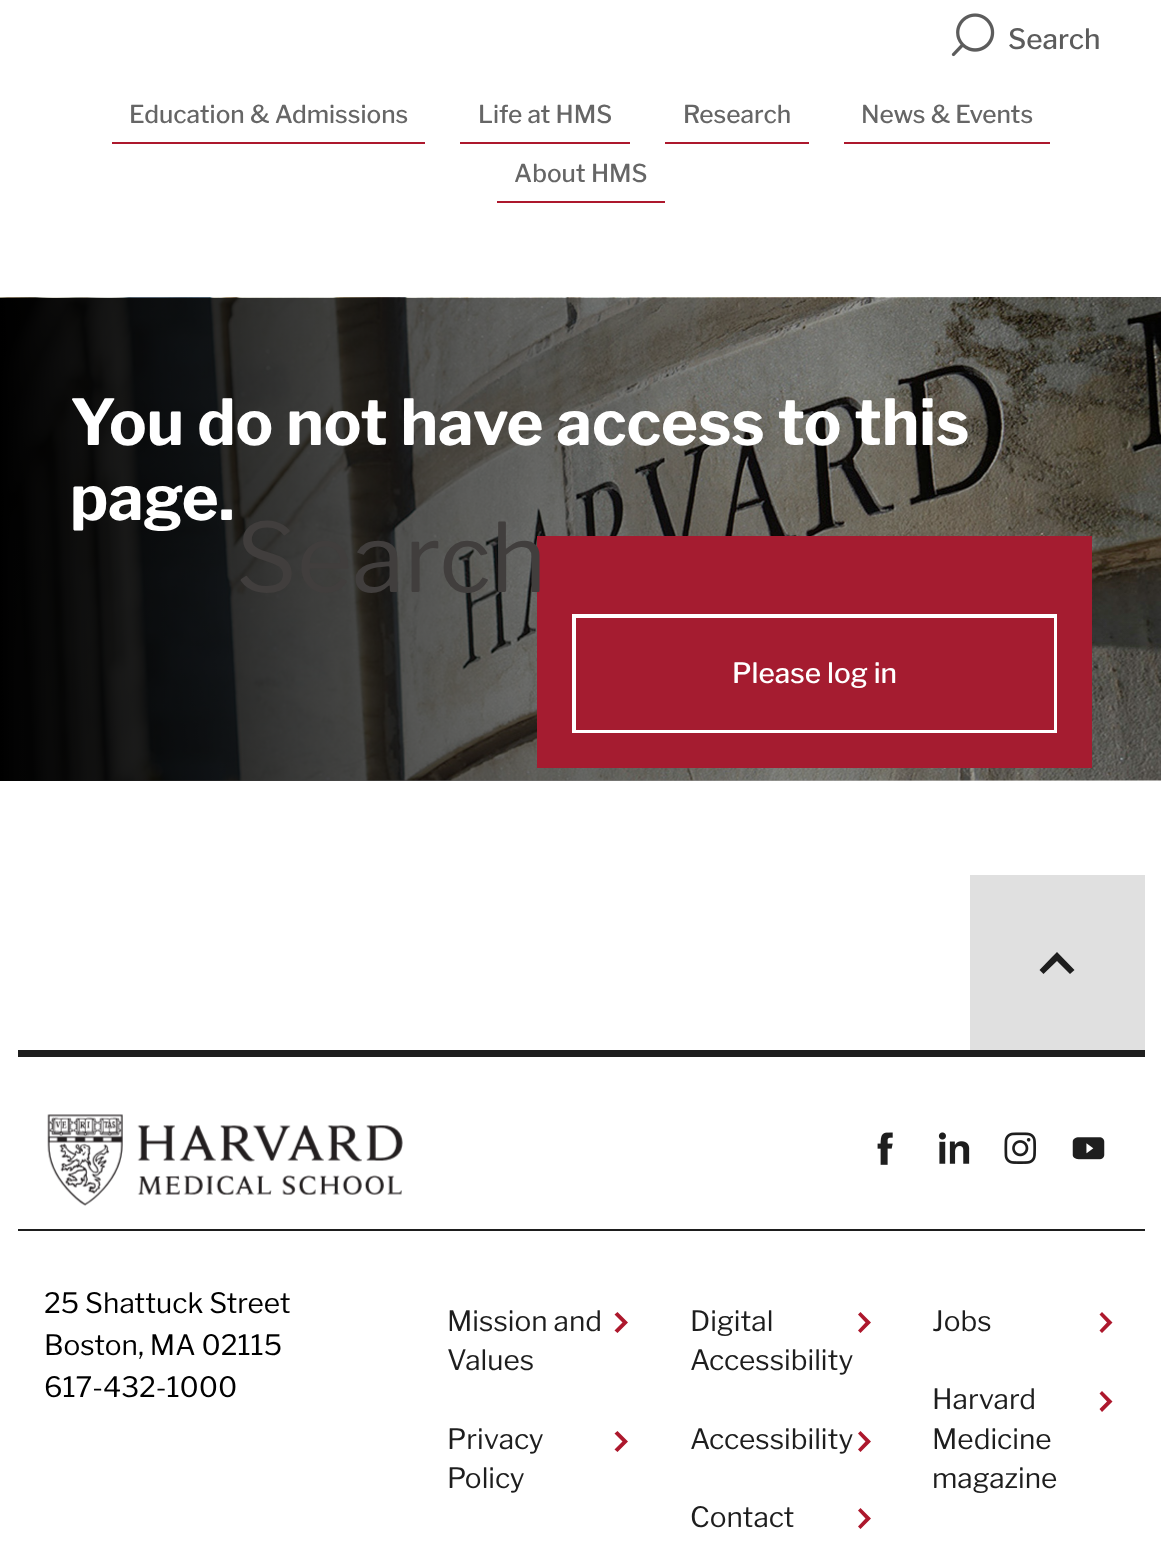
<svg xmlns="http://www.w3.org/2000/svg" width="1161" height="1544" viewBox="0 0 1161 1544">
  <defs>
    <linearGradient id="g1" gradientUnits="userSpaceOnUse" x1="0" y1="539" x2="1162" y2="539"><stop offset="0" stop-color="#000000"/><stop offset="1" stop-color="#000000" stop-opacity="0"/></linearGradient>
  </defs>
  <rect width="100%" height="100%" fill="#ffffff"/>
  <image x="951" y="13" width="44" height="44" href="img1.png"/>
  <text x="1008" y="49" font-family="Libre Franklin" font-size="28" font-weight="500" fill="#5c5c5c">Search</text>
  <image x="0" y="297" width="1161" height="484" href="img2.png"/>
  <rect x="0" y="298" width="1137" height="483" fill="url(#g1)"/>
  <rect x="537" y="536" width="555" height="232" fill="#a51c30"/>
  <text x="236" y="592" font-family="Libre Franklin" font-size="95" fill="#413e3d">Search</text>
  <text x="129" y="123" font-family="Libre Franklin" font-size="24.5" font-weight="500" fill="#666666">Education &amp; Admissions</text>
  <rect x="112" y="142" width="313" height="2" fill="#ad182d"/>
  <text x="478" y="123" font-family="Libre Franklin" font-size="24.5" font-weight="500" fill="#666666">Life at HMS</text>
  <rect x="460" y="142" width="170" height="2" fill="#ad182d"/>
  <text x="683" y="123" font-family="Libre Franklin" font-size="24.5" font-weight="500" fill="#666666">Research</text>
  <rect x="665" y="142" width="144" height="2" fill="#ad182d"/>
  <text x="861" y="123" font-family="Libre Franklin" font-size="24.5" font-weight="500" fill="#666666">News &amp; Events</text>
  <rect x="844" y="142" width="206" height="2" fill="#ad182d"/>
  <text x="514" y="182" font-family="Libre Franklin" font-size="24.5" font-weight="500" fill="#666666">About HMS</text>
  <rect x="497" y="201" width="168" height="2" fill="#ad182d"/>
  <text x="70" y="445" font-family="Libre Franklin" font-size="63" font-weight="bold" fill="#ffffff">You do not have access to this</text>
  <text x="70" y="520" font-family="Libre Franklin" font-size="63" font-weight="bold" fill="#ffffff">page.</text>
  <rect x="574" y="616" width="481" height="115" fill="none" stroke="#ffffff" stroke-width="4"/>
  <rect x="576" y="618" width="478" height="112" fill="#a51c30"/>
  <text x="732" y="683" font-family="Libre Franklin" font-size="28" font-weight="500" fill="#ffffff">Please log in</text>
  <rect x="18" y="1050" width="1127" height="7" fill="#1e1e1e"/>
  <rect x="970" y="875" width="175" height="175" fill="#e0e0e0"/>
  <path d="M1057 952L1074.5 970L1070 974L1057 961L1043.5 974L1039.5 970L1052.5 956.5Z" fill="#1e1e1e"/>
  <rect x="18" y="1229" width="1127" height="2" fill="#1e1e1e"/>
  <image x="47" y="1114" width="356" height="92" href="img3.png"/>
  <image x="877" y="1132" width="16" height="33" href="img4.png"/>
  <image x="938" y="1132" width="32" height="32" href="img5.png"/>
  <image x="1004" y="1132" width="32" height="32" href="img6.png"/>
  <image x="1072" y="1137" width="33" height="23" href="img7.png"/>
  <text x="44" y="1313" font-family="Libre Franklin" font-size="28" fill="#000000">25 Shattuck Street</text>
  <text x="44" y="1355" font-family="Libre Franklin" font-size="28" fill="#000000">Boston, MA 02115</text>
  <text x="44" y="1397" font-family="Libre Franklin" font-size="28" fill="#000000">617-432-1000</text>
  <text x="447" y="1331" font-family="Libre Franklin" font-size="28" fill="#1e1e1e">Mission and</text>
  <path d="M628 1322.5L617.5 1333L614.5 1330.5L622.5 1322.5L614.5 1314.5L617.5 1312Z" fill="#ad182d"/>
  <text x="447" y="1370" font-family="Libre Franklin" font-size="28" fill="#1e1e1e">Values</text>
  <text x="690" y="1331" font-family="Libre Franklin" font-size="28" fill="#1e1e1e">Digital</text>
  <path d="M871 1322.5L860.5 1333L858 1330.5L865.5 1322.5L858 1314.5L860.5 1312Z" fill="#ad182d"/>
  <text x="690" y="1370" font-family="Libre Franklin" font-size="28" fill="#1e1e1e">Accessibility</text>
  <text x="932" y="1331" font-family="Libre Franklin" font-size="28" fill="#1e1e1e">Jobs</text>
  <path d="M1112.5 1322.5L1102 1333L1099.5 1330.5L1107 1322.5L1099.5 1314.5L1102 1312Z" fill="#ad182d"/>
  <text x="447" y="1449" font-family="Libre Franklin" font-size="28" fill="#1e1e1e">Privacy</text>
  <path d="M628 1441.5L617.5 1452L614.5 1449.5L622.5 1441.5L614.5 1433.5L617.5 1431Z" fill="#ad182d"/>
  <text x="447" y="1488" font-family="Libre Franklin" font-size="28" fill="#1e1e1e">Policy</text>
  <text x="690" y="1449" font-family="Libre Franklin" font-size="28" fill="#1e1e1e">Accessibility</text>
  <path d="M871 1441.5L860.5 1452L858 1449.5L865.5 1441.5L858 1433.5L860.5 1431Z" fill="#ad182d"/>
  <text x="932" y="1409" font-family="Libre Franklin" font-size="28" fill="#1e1e1e">Harvard</text>
  <path d="M1112.5 1401.5L1102 1412L1099.5 1409L1107 1401.5L1099.5 1393.5L1102 1391Z" fill="#ad182d"/>
  <text x="932" y="1449" font-family="Libre Franklin" font-size="28" fill="#1e1e1e">Medicine</text>
  <text x="932" y="1488" font-family="Libre Franklin" font-size="28" fill="#1e1e1e">magazine</text>
  <text x="690" y="1527" font-family="Libre Franklin" font-size="28" fill="#1e1e1e">Contact</text>
  <path d="M871 1518.5L860.5 1529L858 1526.5L865.5 1518.5L858 1510.5L860.5 1508Z" fill="#ad182d"/>
</svg>
